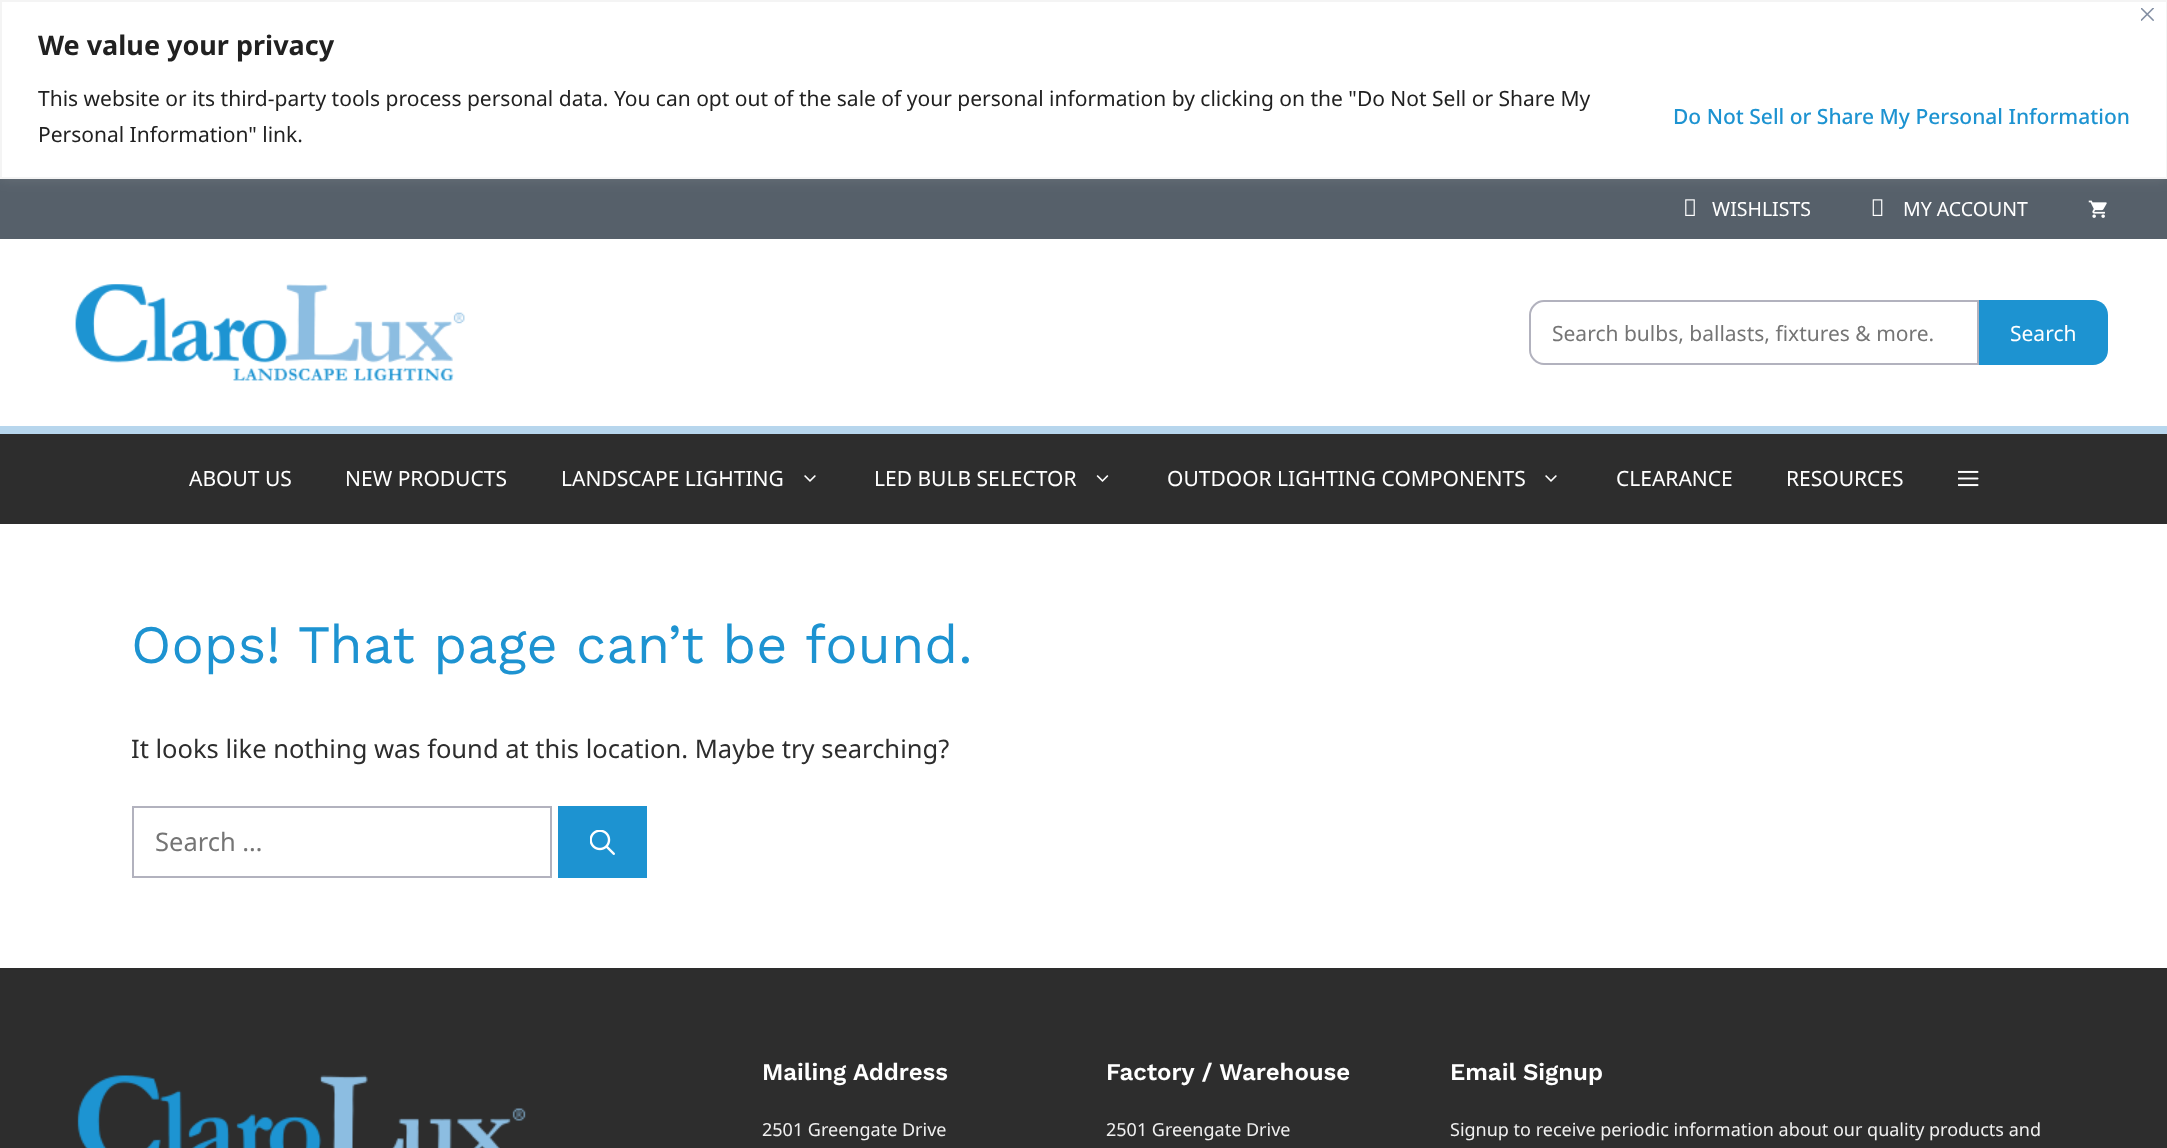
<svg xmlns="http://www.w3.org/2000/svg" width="2167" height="1148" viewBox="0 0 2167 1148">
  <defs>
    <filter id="blur1" x="-50%" y="-200%" width="200%" height="500%"><feGaussianBlur stdDeviation="7.5"/></filter>
  </defs>
  <rect width="100%" height="100%" fill="#ffffff"/>
  <rect x="0" y="179" width="2167" height="60" fill="#56606a"/>
  <image x="1685" y="199" width="10" height="17" href="img2.png"/>
  <image x="1872" y="199" width="11" height="17" href="img3.png"/>
  <image x="2088" y="200" width="19" height="18" href="img4.png"/>
  <rect x="0" y="-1" width="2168" height="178" fill="#acabab" fill-opacity="0.3" filter="url(#blur1)"/>
  <rect x="1" y="1" width="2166" height="177" fill="#ffffff" stroke="#f4f4f4" stroke-width="2"/>
  <image x="2141" y="8" width="13" height="13" href="img1.png"/>
  <text x="38" y="55" font-family="Noto Sans" font-size="27" font-weight="bold" fill="#212121">We value your privacy</text>
  <text x="38" y="106" font-family="Noto Sans" font-size="21" fill="#212121">This website or its third-party tools process personal data. You can opt out of the sale of your personal information by clicking on the "Do Not Sell or Share My</text>
  <text x="38" y="142" font-family="Noto Sans" font-size="21" fill="#212121">Personal Information" link.</text>
  <text x="1673" y="124" font-family="Noto Sans" font-size="21" font-weight="500" fill="#1d93d1">Do Not Sell or Share My Personal Information</text>
  <text x="1712" y="216" font-family="Noto Sans" font-size="19.5" fill="#ffffff">WISHLISTS</text>
  <text x="1903" y="216" font-family="Noto Sans" font-size="19.5" fill="#ffffff">MY ACCOUNT</text>
  <image x="75" y="284" width="390" height="97" href="img5.png"/>
  <path d="M1544 301H1978V364H1544C1536.5 364 1530 357.5 1530 350V315C1530 307.5 1536.5 301 1544 301Z" fill="none" stroke="#b2b2be" stroke-width="2"/>
  <text x="1552" y="341" font-family="Noto Sans" font-size="21" fill="#757575">Search bulbs, ballasts, fixtures &amp; more.</text>
  <path d="M1979 300H2093C2101.5 300 2108 306.5 2108 315V350C2108 358.5 2101.5 365 2093 365H1979Z" fill="#1d93d1"/>
  <text x="2010" y="341" font-family="Noto Sans" font-size="21" fill="#ffffff">Search</text>
  <rect x="0" y="434" width="2167" height="90" fill="#2d2d2d"/>
  <rect x="0" y="426" width="2167" height="8" fill="#b7d6ed"/>
  <text x="189" y="486" font-family="Noto Sans" font-size="21" fill="#ffffff">ABOUT US</text>
  <text x="345" y="486" font-family="Noto Sans" font-size="21" fill="#ffffff">NEW PRODUCTS</text>
  <text x="561" y="486" font-family="Noto Sans" font-size="21" fill="#ffffff">LANDSCAPE LIGHTING</text>
  <image x="804" y="475" width="12" height="7" href="img6.png"/>
  <text x="874" y="486" font-family="Noto Sans" font-size="21" fill="#ffffff">LED BULB SELECTOR</text>
  <image x="1096" y="475" width="13" height="7" href="img7.png"/>
  <text x="1167" y="486" font-family="Noto Sans" font-size="21" fill="#ffffff">OUTDOOR LIGHTING COMPONENTS</text>
  <image x="1545" y="475" width="12" height="7" href="img6.png"/>
  <text x="1616" y="486" font-family="Noto Sans" font-size="21" fill="#ffffff">CLEARANCE</text>
  <text x="1786" y="486" font-family="Noto Sans" font-size="21" fill="#ffffff">RESOURCES</text>
  <image x="1958" y="470" width="21" height="17" href="img8.png"/>
  <text x="131" y="663" font-family="Work Sans" font-size="54" fill="#1d93d1">Oops! That page can’t be found.</text>
  <text x="131" y="758" font-family="Noto Sans" font-size="25.5" fill="#2d2d2d">It looks like nothing was found at this location. Maybe try searching?</text>
  <rect x="133" y="807" width="418" height="70" fill="none" stroke="#b2b2be" stroke-width="2"/>
  <text x="155" y="851" font-family="Noto Sans" font-size="25.5" fill="#757575">Search …</text>
  <rect x="558" y="806" width="89" height="72" fill="#1d93d1"/>
  <image x="590" y="830" width="25" height="25" href="img9.png"/>
  <rect x="0" y="968" width="2167" height="180" fill="#2d2d2d"/>
  <image x="77" y="1075" width="449" height="73" href="img10.png"/>
  <text x="762" y="1080" font-family="Work Sans" font-size="24" font-weight="600" fill="#ffffff">Mailing Address</text>
  <text x="762" y="1136" font-family="Noto Sans" font-size="18" fill="#f0f0f0">2501 Greengate Drive</text>
  <text x="1106" y="1080" font-family="Work Sans" font-size="24" font-weight="600" fill="#ffffff">Factory / Warehouse</text>
  <text x="1106" y="1136" font-family="Noto Sans" font-size="18" fill="#f0f0f0">2501 Greengate Drive</text>
  <text x="1450" y="1080" font-family="Work Sans" font-size="24" font-weight="600" fill="#ffffff">Email Signup</text>
  <text x="1450" y="1136" font-family="Noto Sans" font-size="18" fill="#f0f0f0">Signup to receive periodic information about our quality products and</text>
</svg>
